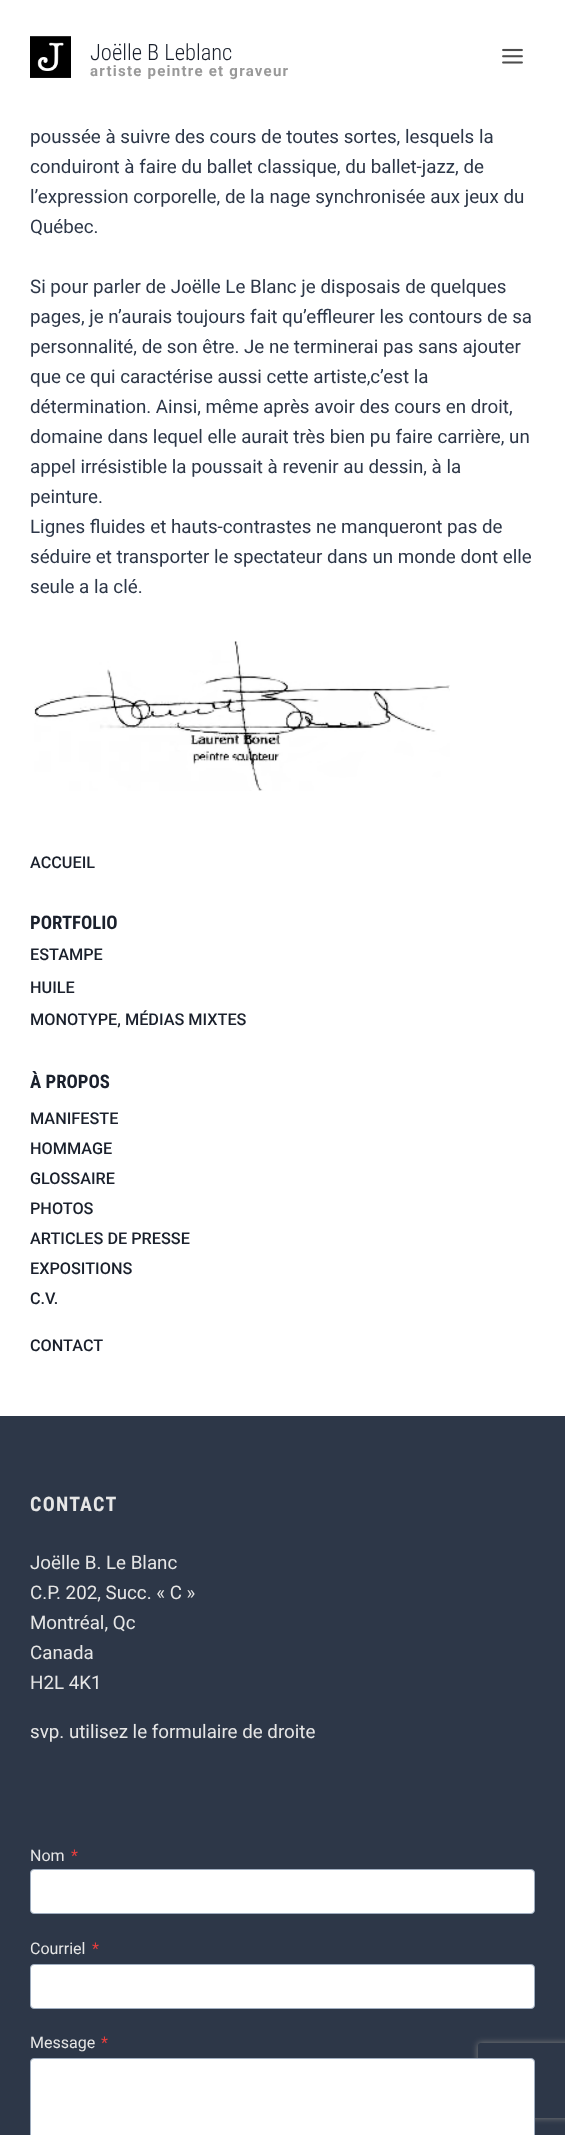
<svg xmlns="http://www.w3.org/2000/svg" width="565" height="2135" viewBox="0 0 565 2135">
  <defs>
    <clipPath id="clip1"><path d="M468 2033H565V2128H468ZM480.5 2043H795.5C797 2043 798 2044 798 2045.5V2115.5C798 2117 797 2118 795.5 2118H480.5C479 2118 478 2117 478 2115.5V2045.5C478 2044 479 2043 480.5 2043Z" clip-rule="evenodd"/></clipPath>
    <filter id="blur1" x="-50%" y="-200%" width="200%" height="500%"><feGaussianBlur stdDeviation="3"/></filter>
  </defs>
  <rect width="100%" height="100%" fill="#ffffff"/>
  <image x="30" y="36" width="41" height="42" href="img1.png"/>
  <text x="90" y="60" font-family="Roboto Condensed" font-size="22.5" font-weight="300" fill="#1a202c">Joëlle B Leblanc</text>
  <text x="90" y="76" font-family="Roboto" font-size="15" font-weight="bold" letter-spacing="1.25" fill="#999999">artiste peintre et graveur</text>
  <image x="502" y="48" width="21" height="16" href="img2.png"/>
  <text x="30" y="143" font-family="Roboto" font-size="18.75" fill="#2d3748">poussée à suivre des cours de toutes sortes, lesquels la</text>
  <text x="30" y="173" font-family="Roboto" font-size="18.75" fill="#2d3748">conduiront à faire du ballet classique, du ballet-jazz, de</text>
  <text x="30" y="203" font-family="Roboto" font-size="18.75" fill="#2d3748">l’expression corporelle, de la nage synchronisée aux jeux du</text>
  <text x="30" y="233" font-family="Roboto" font-size="18.75" fill="#2d3748">Québec.</text>
  <text x="30" y="293" font-family="Roboto" font-size="18.75" fill="#2d3748">Si pour parler de Joëlle Le Blanc je disposais de quelques</text>
  <text x="30" y="323" font-family="Roboto" font-size="18.75" fill="#2d3748">pages, je n’aurais toujours fait qu’effleurer les contours de sa</text>
  <text x="30" y="353" font-family="Roboto" font-size="18.75" fill="#2d3748">personnalité, de son être. Je ne terminerai pas sans ajouter</text>
  <text x="30" y="383" font-family="Roboto" font-size="18.75" fill="#2d3748">que ce qui caractérise aussi cette artiste,c’est la</text>
  <text x="30" y="413" font-family="Roboto" font-size="18.75" fill="#2d3748">détermination. Ainsi, même après avoir des cours en droit,</text>
  <text x="30" y="443" font-family="Roboto" font-size="18.75" fill="#2d3748">domaine dans lequel elle aurait très bien pu faire carrière, un</text>
  <text x="30" y="473" font-family="Roboto" font-size="18.75" fill="#2d3748">appel irrésistible la poussait à revenir au dessin, à la</text>
  <text x="30" y="503" font-family="Roboto" font-size="18.75" fill="#2d3748">peinture.</text>
  <text x="30" y="533" font-family="Roboto" font-size="18.75" fill="#2d3748">Lignes fluides et hauts-contrastes ne manqueront pas de</text>
  <text x="30" y="563" font-family="Roboto" font-size="18.75" fill="#2d3748">séduire et transporter le spectateur dans un monde dont elle</text>
  <text x="30" y="593" font-family="Roboto" font-size="18.75" fill="#2d3748">seule a la clé.</text>
  <image x="34" y="641" width="416" height="150" href="img3.png"/>
  <text x="30" y="868" font-family="Roboto" font-size="16.25" font-weight="500" fill="#1a202c">ACCUEIL</text>
  <text x="30" y="929" font-family="Roboto Condensed" font-size="18.75" font-weight="bold" fill="#1a202c">PORTFOLIO</text>
  <text x="30" y="960" font-family="Roboto" font-size="16.25" font-weight="500" fill="#1a202c">ESTAMPE</text>
  <text x="30" y="993" font-family="Roboto" font-size="16.25" font-weight="500" fill="#1a202c">HUILE</text>
  <text x="30" y="1025" font-family="Roboto" font-size="16.25" font-weight="500" fill="#1a202c">MONOTYPE, MÉDIAS MIXTES</text>
  <text x="30" y="1088" font-family="Roboto Condensed" font-size="18.75" font-weight="bold" fill="#1a202c">À PROPOS</text>
  <text x="30" y="1124" font-family="Roboto" font-size="16.25" font-weight="500" fill="#1a202c">MANIFESTE</text>
  <text x="30" y="1154" font-family="Roboto" font-size="16.25" font-weight="500" fill="#1a202c">HOMMAGE</text>
  <text x="30" y="1184" font-family="Roboto" font-size="16.25" font-weight="500" fill="#1a202c">GLOSSAIRE</text>
  <text x="30" y="1214" font-family="Roboto" font-size="16.25" font-weight="500" fill="#1a202c">PHOTOS</text>
  <text x="30" y="1244" font-family="Roboto" font-size="16.25" font-weight="500" fill="#1a202c">ARTICLES DE PRESSE</text>
  <text x="30" y="1274" font-family="Roboto" font-size="16.25" font-weight="500" fill="#1a202c">EXPOSITIONS</text>
  <text x="30" y="1304" font-family="Roboto" font-size="16.25" font-weight="500" fill="#1a202c">C.V.</text>
  <text x="30" y="1351" font-family="Roboto" font-size="16.25" font-weight="500" fill="#1a202c">CONTACT</text>
  <rect x="0" y="1416" width="565" height="719" fill="#2d3748"/>
  <text x="30" y="1511" font-family="Roboto Condensed" font-size="20" font-weight="bold" letter-spacing="1.25" fill="#e6e6e6">CONTACT</text>
  <text x="30" y="1569" font-family="Roboto" font-size="18.75" fill="#e6e6e6">Joëlle B. Le Blanc</text>
  <text x="30" y="1599" font-family="Roboto" font-size="18.75" fill="#e6e6e6">C.P. 202, Succ. « C »</text>
  <text x="30" y="1629" font-family="Roboto" font-size="18.75" fill="#e6e6e6">Montréal, Qc</text>
  <text x="30" y="1659" font-family="Roboto" font-size="18.75" fill="#e6e6e6">Canada</text>
  <text x="30" y="1689" font-family="Roboto" font-size="18.75" fill="#e6e6e6">H2L 4K1</text>
  <text x="30" y="1738" font-family="Roboto" font-size="18.75" fill="#e6e6e6">svp. utilisez le formulaire de droite</text>
  <text x="30" y="1861" font-family="Roboto" font-size="16" fill="#e6e6e6">Nom</text>
  <text x="71" y="1861" font-family="Roboto" font-size="16" fill="#e53e3e">*</text>
  <rect x="30.5" y="1869.5" width="504" height="44" rx="3.5" fill="#ffffff" stroke="#a0aec0"/>
  <text x="30" y="1954" font-family="Roboto" font-size="16" fill="#e6e6e6">Courriel</text>
  <text x="92" y="1954" font-family="Roboto" font-size="16" fill="#e53e3e">*</text>
  <rect x="30.5" y="1964.5" width="504" height="44" rx="3.5" fill="#ffffff" stroke="#a0aec0"/>
  <text x="30" y="2048" font-family="Roboto" font-size="16" fill="#e6e6e6">Message</text>
  <text x="101" y="2048" font-family="Roboto" font-size="16" fill="#e53e3e">*</text>
  <g clip-path="url(#clip1)">
    <rect x="478" y="2043" width="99" height="75" rx="2.5" fill="#808080" filter="url(#blur1)"/>
  </g>
  <rect x="30.5" y="2058.5" width="504" height="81" rx="3.5" fill="#ffffff" stroke="#a0aec0"/>
</svg>
